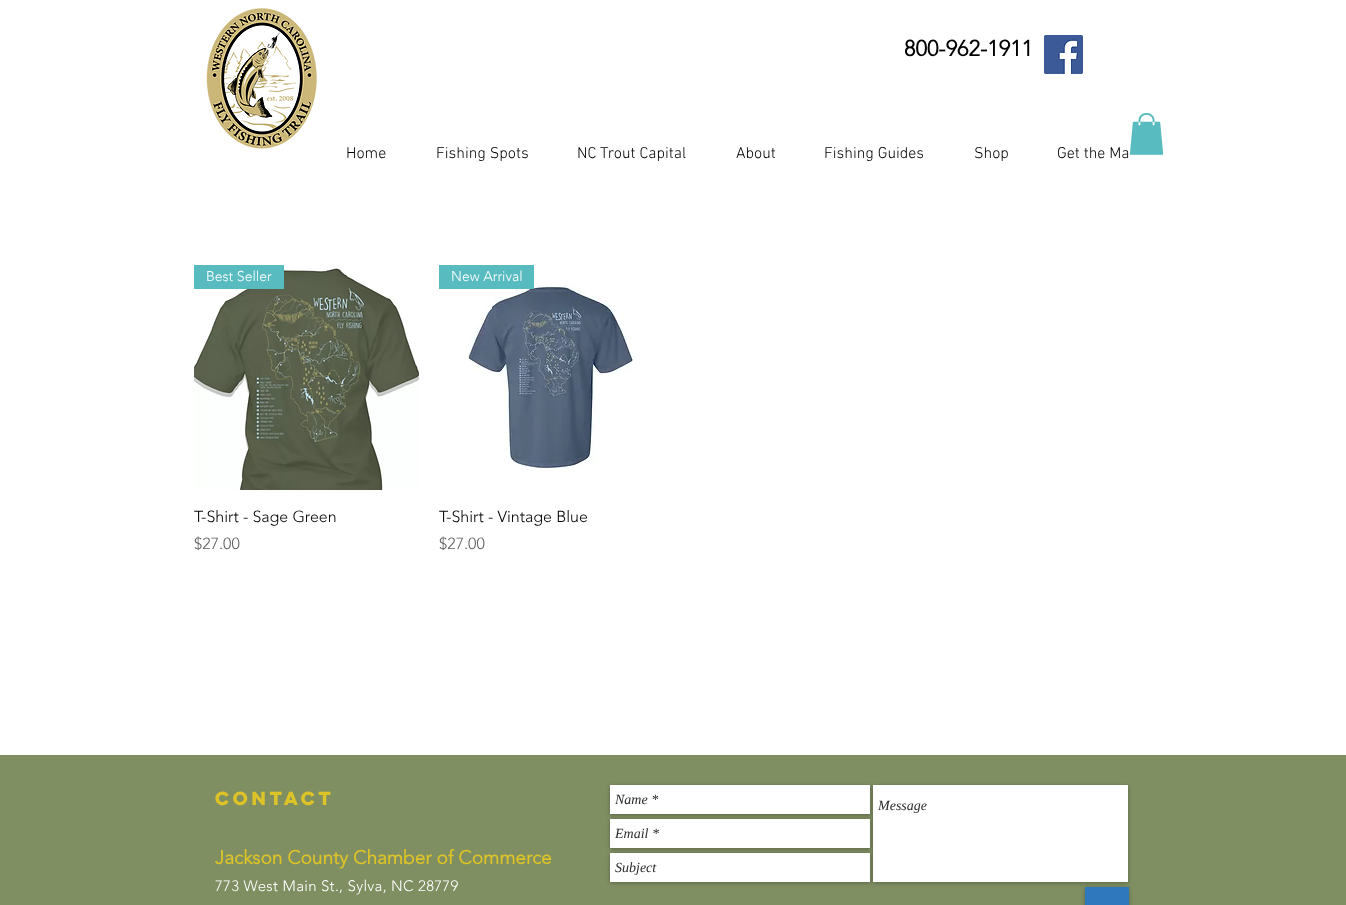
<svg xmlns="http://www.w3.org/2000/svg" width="1346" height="905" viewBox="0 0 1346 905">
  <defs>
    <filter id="blur1" x="-50%" y="-200%" width="200%" height="500%"><feGaussianBlur stdDeviation="2"/></filter>
  </defs>
  <rect width="100%" height="100%" fill="#ffffff"/>
  <image x="206" y="8" width="111" height="141" href="img1.png"/>
  <text x="904" y="56" font-family="'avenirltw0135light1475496'" font-size="22" font-weight="bold" fill="#000000">800-962-1911</text>
  <image x="1044" y="35" width="39" height="39" href="img2.png"/>
  <text x="346" y="158" font-family="'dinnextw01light'" font-size="16" font-weight="300" fill="#000000">Home</text>
  <text x="436" y="158" font-family="'dinnextw01light'" font-size="16" font-weight="300" fill="#000000">Fishing Spots</text>
  <text x="577" y="158" font-family="'dinnextw01light'" font-size="16" font-weight="300" fill="#000000">NC Trout Capital</text>
  <text x="736" y="158" font-family="'dinnextw01light'" font-size="16" font-weight="300" fill="#000000">About</text>
  <text x="824" y="158" font-family="'dinnextw01light'" font-size="16" font-weight="300" fill="#000000">Fishing Guides</text>
  <text x="974" y="158" font-family="'dinnextw01light'" font-size="16" font-weight="300" fill="#000000">Shop</text>
  <text x="1057" y="158" font-family="'dinnextw01light'" font-size="16" font-weight="300" fill="#000000">Get the Ma</text>
  <image x="1129" y="113" width="35" height="42" href="img3.png"/>
  <image x="194" y="268" width="225" height="222" href="img4.png"/>
  <rect x="194" y="265" width="90" height="24" fill="#57bbbf"/>
  <text x="206" y="281" font-family="'avenirltw0135light1475496'" font-size="14" font-weight="300" fill="#ffffff">Best Seller</text>
  <text x="194" y="522" font-family="'avenirltw0135light1475496'" font-size="16" font-weight="300" fill="#000000">T-Shirt - Sage Green</text>
  <text x="194" y="549" font-family="'avenirltw0135light1475496'" font-size="16" font-weight="300" fill="#605e5e">$27.00</text>
  <image x="466" y="285" width="168" height="184" href="img5.png"/>
  <rect x="439" y="265" width="95" height="24" fill="#57bbbf"/>
  <text x="451" y="281" font-family="'avenirltw0135light1475496'" font-size="14" font-weight="300" fill="#ffffff">New Arrival</text>
  <text x="439" y="522" font-family="'avenirltw0135light1475496'" font-size="16" font-weight="300" fill="#000000">T-Shirt - Vintage Blue</text>
  <text x="439" y="549" font-family="'avenirltw0135light1475496'" font-size="16" font-weight="300" fill="#605e5e">$27.00</text>
  <rect x="0" y="755" width="1346" height="150" fill="#7f8f62"/>
  <text x="215" y="805" font-family="'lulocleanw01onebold'" font-size="17" font-weight="bold" fill="#dec328">Contact</text>
  <rect x="610" y="786" width="260" height="29" fill="#000000" fill-opacity="0.3" filter="url(#blur1)"/>
  <rect x="610" y="785" width="260" height="29" fill="#ffffff"/>
  <text x="615" y="804" font-family="Liberation Serif" font-size="14" font-style="italic" fill="#2a2a2a">Name *</text>
  <rect x="610" y="820" width="260" height="29" fill="#000000" fill-opacity="0.3" filter="url(#blur1)"/>
  <rect x="610" y="819" width="260" height="29" fill="#ffffff"/>
  <rect x="610" y="854" width="260" height="29" fill="#000000" fill-opacity="0.3" filter="url(#blur1)"/>
  <rect x="610" y="853" width="260" height="29" fill="#ffffff"/>
  <rect x="873" y="786" width="255" height="97" fill="#000000" fill-opacity="0.3" filter="url(#blur1)"/>
  <rect x="873" y="785" width="255" height="97" fill="#ffffff"/>
  <text x="878" y="810" font-family="Liberation Serif" font-size="14" font-style="italic" fill="#2a2a2a">Message</text>
  <text x="615" y="838" font-family="Liberation Serif" font-size="14" font-style="italic" fill="#2a2a2a">Email *</text>
  <text x="615" y="872" font-family="Liberation Serif" font-size="14" font-style="italic" fill="#2a2a2a">Subject</text>
  <rect x="1085" y="888" width="44" height="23" fill="#000000" fill-opacity="0.3" filter="url(#blur1)"/>
  <rect x="1085" y="887" width="44" height="18" fill="#3078be"/>
  <text x="215" y="864" font-family="'avenirltw0135light1475496'" font-size="19" font-weight="bold" fill="#dec328">Jackson County Chamber of Commerce</text>
  <text x="215" y="891" font-family="'avenirltw0135light1475496'" font-size="15" font-weight="300" letter-spacing="0.3" fill="#ffffff">773 West Main St., Sylva, NC 28779</text>
</svg>
